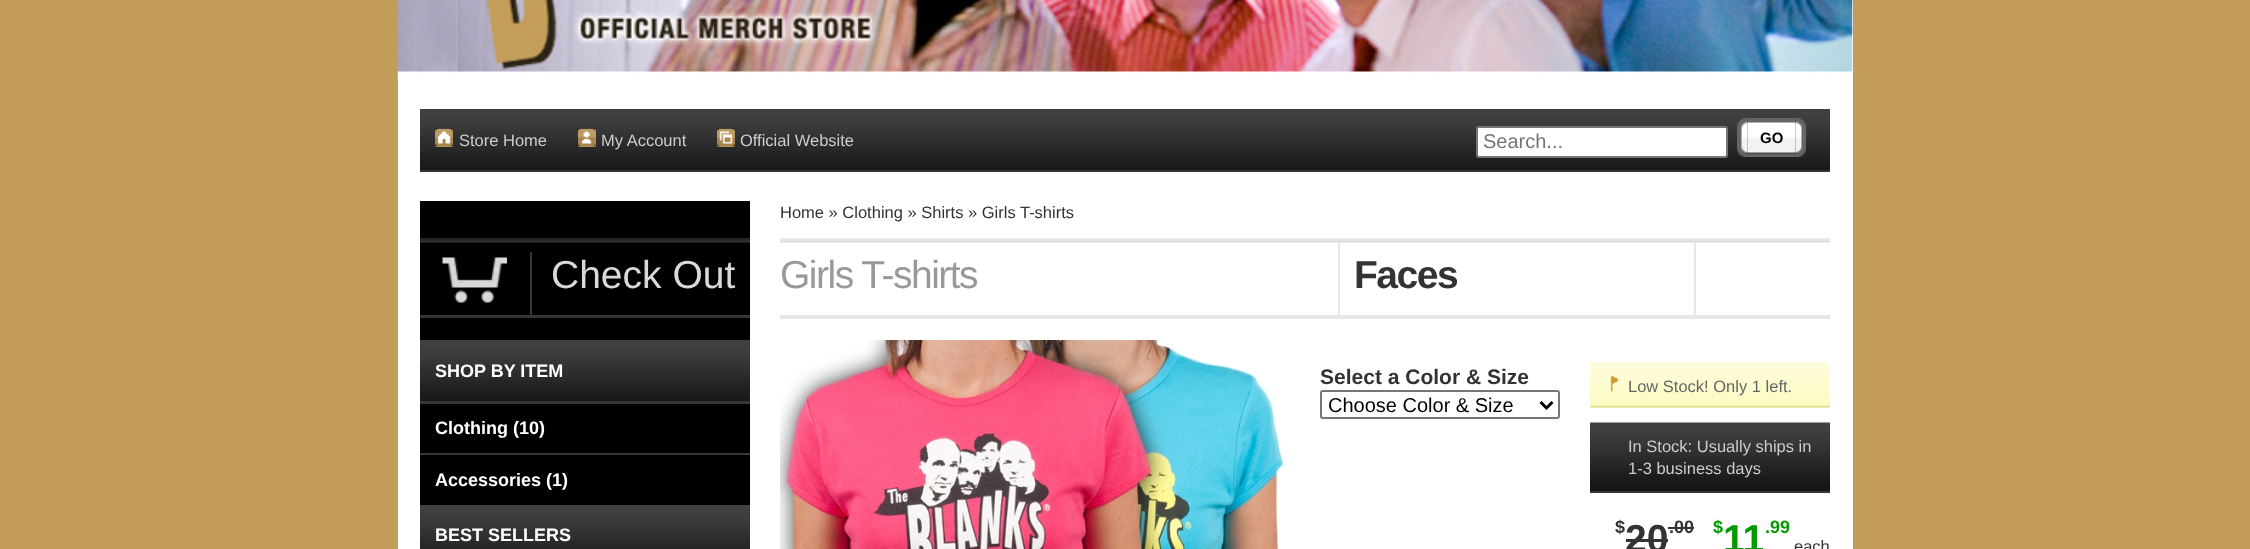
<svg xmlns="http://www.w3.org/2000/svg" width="2250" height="549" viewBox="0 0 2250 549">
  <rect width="100%" height="100%" fill="#c39c59"/>
  <rect x="398" y="0" width="1455" height="549" fill="#ffffff"/>
  <image x="397" y="0" width="1456" height="79" href="img1.png"/>
  <image x="420" y="109" width="1410" height="61" href="img2.png"/>
  <rect x="420" y="170" width="1410" height="2" fill="#363636"/>
  <rect x="435" y="129" width="18" height="18" fill="#c39c59"/>
  <image x="435" y="128" width="18" height="19" href="img3.png"/>
  <text x="459" y="146" font-family="Liberation Sans" font-size="16.5" fill="#cccccc">Store Home</text>
  <rect x="578" y="129" width="18" height="18" fill="#c39c59"/>
  <image x="577" y="128" width="19" height="19" href="img4.png"/>
  <text x="601" y="146" font-family="Liberation Sans" font-size="16.5" fill="#cccccc">My Account</text>
  <rect x="717" y="129" width="18" height="18" fill="#c39c59"/>
  <image x="717" y="128" width="18" height="19" href="img5.png"/>
  <text x="740" y="146" font-family="Liberation Sans" font-size="16.5" fill="#cccccc">Official Website</text>
  <rect x="1477" y="127" width="250" height="30" rx="2" fill="#ffffff" stroke="#767676" stroke-width="2"/>
  <text x="1483" y="148" font-family="Liberation Sans" font-size="20" fill="#757575">Search...</text>
  <image x="1737" y="118" width="11" height="39" href="img6.png"/>
  <image x="1747" y="118" width="49" height="39" href="img7.png"/>
  <text x="1760" y="143" font-family="Liberation Sans" font-size="15" font-weight="bold" fill="#000000">GO</text>
  <image x="1795" y="118" width="11" height="39" href="img8.png"/>
  <rect x="420" y="201" width="330" height="304" fill="#000000"/>
  <image x="420" y="238" width="330" height="5" href="img9.png"/>
  <rect x="420" y="315" width="330" height="3" fill="#363636"/>
  <image x="442" y="257" width="65" height="46" href="img10.png"/>
  <rect x="530" y="252" width="2" height="63" fill="#363636"/>
  <text x="551" y="288" font-family="Liberation Sans" font-size="39" fill="#d9d9d9">Check Out</text>
  <image x="420" y="340" width="330" height="61" href="img11.png"/>
  <rect x="420" y="401" width="330" height="3" fill="#363636"/>
  <text x="435" y="377" font-family="Liberation Sans" font-size="18" font-weight="bold" fill="#ffffff">SHOP BY ITEM</text>
  <rect x="420" y="453" width="330" height="2" fill="#363636"/>
  <text x="435" y="434" font-family="Liberation Sans" font-size="18" font-weight="bold" fill="#ffffff">Clothing (10)</text>
  <text x="435" y="486" font-family="Liberation Sans" font-size="18" font-weight="bold" fill="#ffffff">Accessories (1)</text>
  <image x="420" y="505" width="330" height="44" href="img12.png"/>
  <text x="435" y="541" font-family="Liberation Sans" font-size="18" font-weight="bold" fill="#ffffff">BEST SELLERS</text>
  <image x="780" y="238" width="1050" height="5" href="img13.png"/>
  <text x="780" y="218" font-family="Liberation Sans" font-size="16.5" fill="#333333">Home » Clothing » Shirts » Girls T-shirts</text>
  <rect x="780" y="317" width="1050" height="2" fill="#e7e7e7"/>
  <rect x="780" y="315" width="558" height="2" fill="#e7e7e7"/>
  <text x="780" y="288" font-family="Liberation Sans" font-size="39" letter-spacing="-1.5" fill="#999999">Girls T-shirts</text>
  <rect x="1694" y="243" width="2" height="74" fill="#e7e7e7"/>
  <rect x="1338" y="315" width="492" height="2" fill="#e7e7e7"/>
  <rect x="1338" y="243" width="2" height="74" fill="#e7e7e7"/>
  <text x="1354" y="288" font-family="Liberation Sans" font-size="39" font-weight="bold" letter-spacing="-1.5" fill="#333333">Faces</text>
  <image x="780" y="340" width="504" height="209" href="img14.png"/>
  <text x="1320" y="384" font-family="Liberation Sans" font-size="21" font-weight="bold" fill="#333333">Select a Color &amp; Size</text>
  <rect x="1321" y="391" width="238" height="27" rx="2" fill="none" stroke="#767676" stroke-width="2"/>
  <path d="M1540.5 402L1546.5 408L1552.5 402" fill="none" stroke="#000000" stroke-width="3"/>
  <text x="1328" y="412" font-family="Liberation Sans" font-size="20" fill="#000000">Choose Color &amp; Size</text>
  <image x="1590" y="362" width="240" height="46" href="img15.png"/>
  <text x="1628" y="392" font-family="Liberation Sans" font-size="16.5" fill="#666666">Low Stock! Only 1 left.</text>
  <image x="1590" y="422" width="240" height="69" href="img16.png"/>
  <rect x="1590" y="491" width="240" height="2" fill="#363636"/>
  <text x="1628" y="452" font-family="Liberation Sans" font-size="16.5" fill="#cccccc">In Stock: Usually ships in</text>
  <text x="1628" y="474" font-family="Liberation Sans" font-size="16.5" fill="#cccccc">1-3 business days</text>
  <text x="1615" y="533" font-family="Liberation Sans" font-size="18" font-weight="bold" fill="#333333">$</text>
  <text x="1625" y="552" font-family="Liberation Sans" font-size="39" font-weight="bold" fill="#333333">20</text>
  <rect x="1626" y="539" width="42" height="3" fill="#333333"/>
  <text x="1669" y="533" font-family="Liberation Sans" font-size="18" font-weight="bold" fill="#333333">.00</text>
  <rect x="1668" y="527" width="26" height="2" fill="#333333"/>
  <text x="1713" y="533" font-family="Liberation Sans" font-size="18" font-weight="bold" fill="#009900">$</text>
  <text x="1723" y="552" font-family="Liberation Sans" font-size="39" font-weight="bold" fill="#009900">11</text>
  <text x="1765" y="533" font-family="Liberation Sans" font-size="18" font-weight="bold" fill="#009900">.99</text>
  <text x="1794" y="552" font-family="Liberation Sans" font-size="16.5" fill="#333333">each</text>
</svg>
